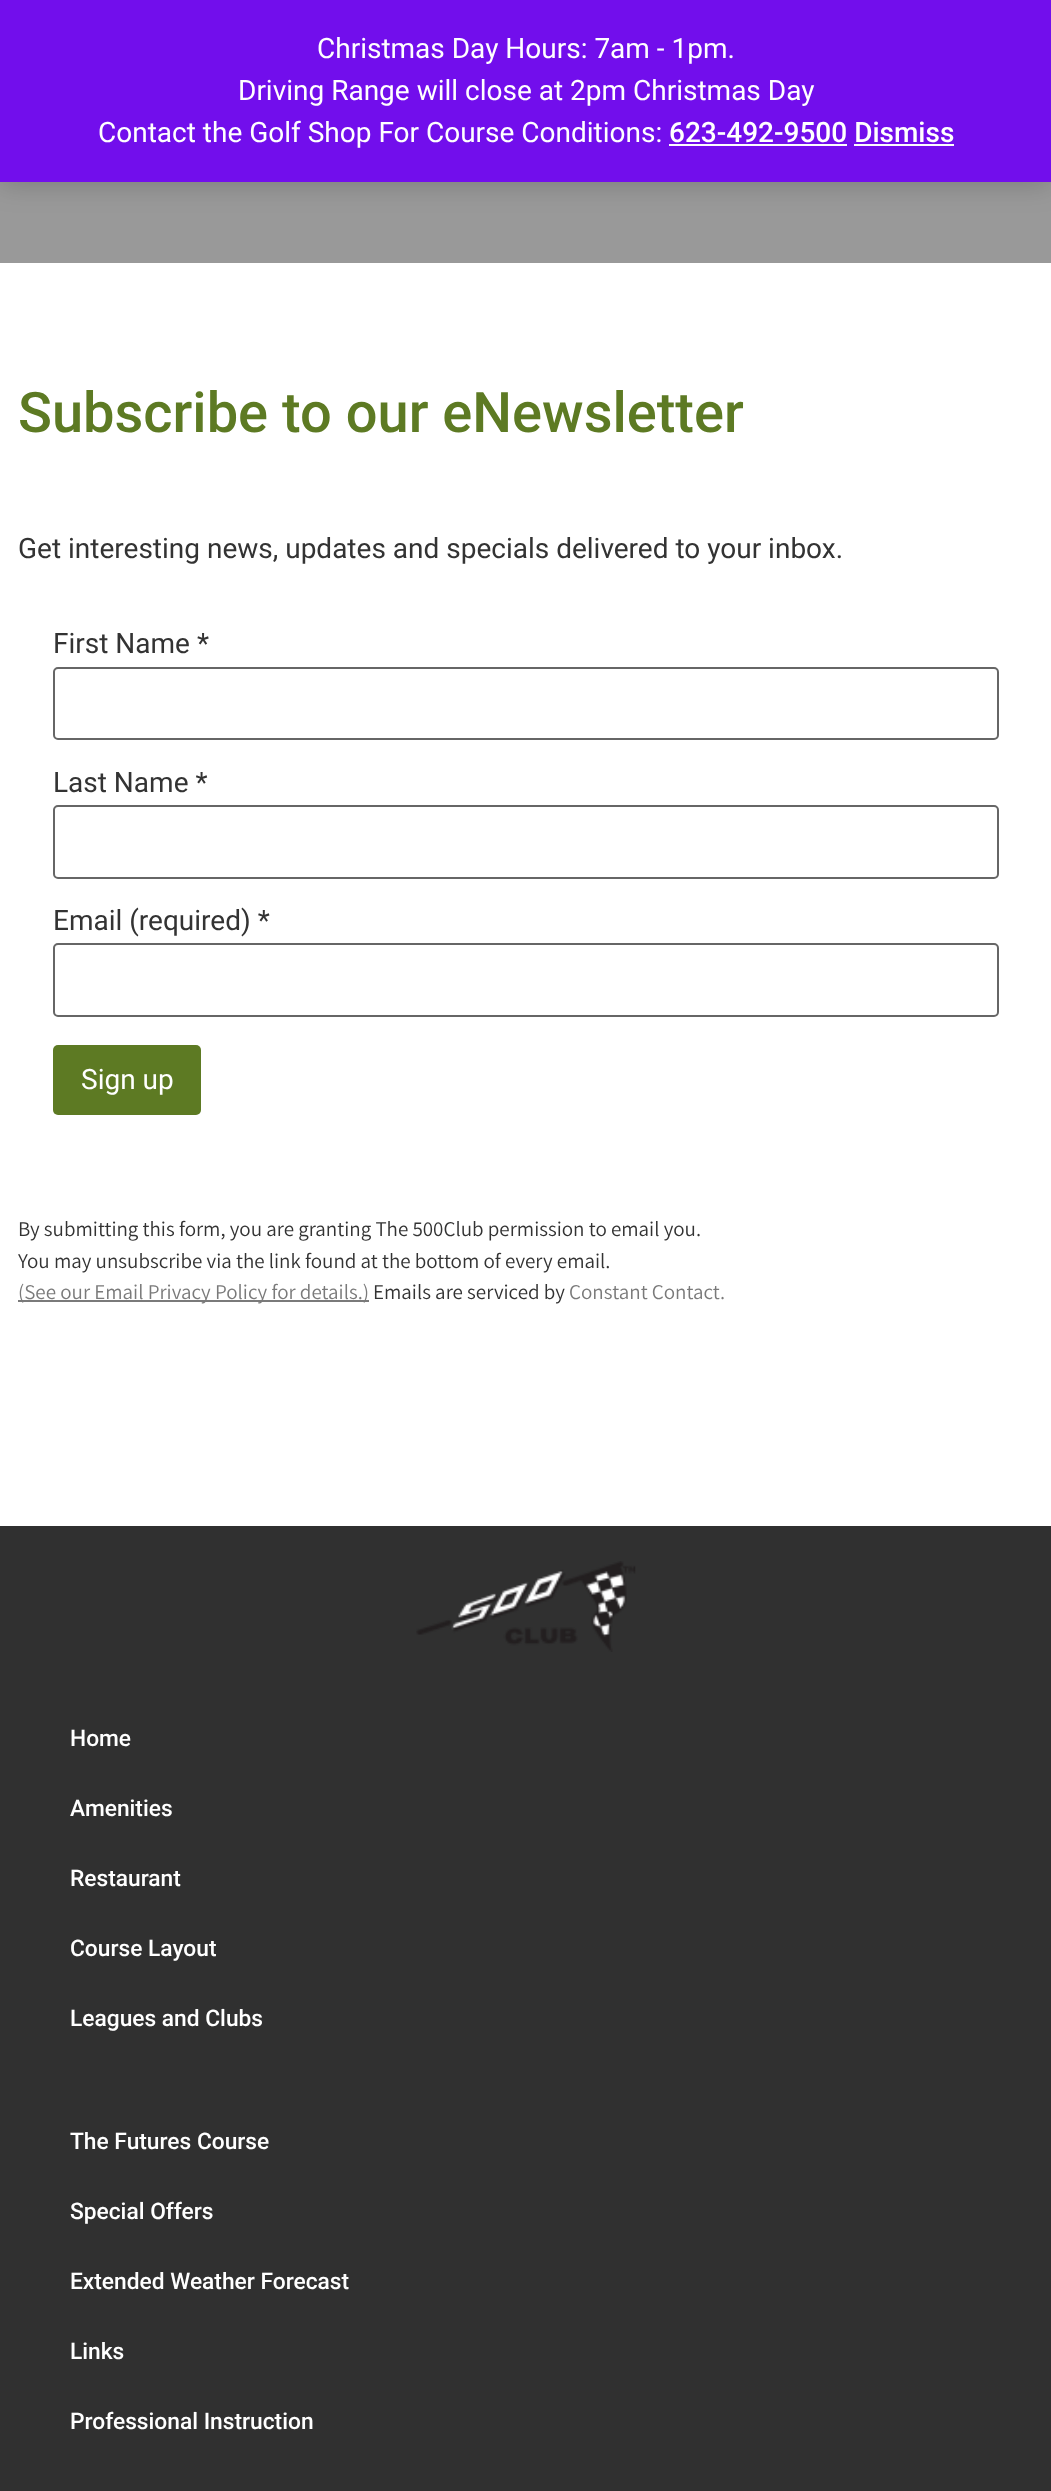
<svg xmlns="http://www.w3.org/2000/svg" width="1051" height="2491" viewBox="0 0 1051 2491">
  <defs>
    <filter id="blur1" x="-50%" y="-200%" width="200%" height="500%"><feGaussianBlur stdDeviation="14"/></filter>
  </defs>
  <rect width="100%" height="100%" fill="#ffffff"/>
  <rect x="0" y="182" width="1051" height="81" fill="#999999"/>
  <rect x="0" y="2" width="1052" height="182" fill="#000000" fill-opacity="0.2" filter="url(#blur1)"/>
  <rect x="0" y="0" width="1051" height="182" fill="#720eec"/>
  <text x="317" y="58" font-family="Roboto" font-size="28" fill="#ffffff">Christmas Day Hours: 7am - 1pm.</text>
  <text x="238" y="100" font-family="Roboto" font-size="28" fill="#ffffff">Driving Range will close at 2pm Christmas Day</text>
  <text x="98" y="142" font-family="Roboto" font-size="28" fill="#ffffff">Contact the Golf Shop For Course Conditions:</text>
  <text x="669" y="142" font-family="Roboto" font-size="28" font-weight="500" fill="#ffffff">623-492-9500 Dismiss</text>
  <rect x="669" y="144" width="178" height="2" fill="#fcfbfe"/>
  <rect x="854" y="144" width="100" height="2" fill="#fcfbfe"/>
  <text x="18" y="432" font-family="Roboto" font-size="56" font-weight="500" fill="#5d7a23">Subscribe to our eNewsletter</text>
  <text x="18" y="558" font-family="Roboto" font-size="28" fill="#333333">Get interesting news, updates and specials delivered to your inbox.</text>
  <text x="53" y="653" font-family="Roboto" font-size="28" fill="#333333">First Name *</text>
  <rect x="54" y="668" width="944" height="71" rx="4" fill="none" stroke="#666666" stroke-width="2"/>
  <text x="53" y="792" font-family="Roboto" font-size="28" fill="#333333">Last Name *</text>
  <rect x="54" y="806" width="944" height="72" rx="4" fill="none" stroke="#666666" stroke-width="2"/>
  <text x="53" y="930" font-family="Roboto" font-size="28" fill="#333333">Email (required) *</text>
  <rect x="54" y="944" width="944" height="72" rx="4" fill="none" stroke="#666666" stroke-width="2"/>
  <rect x="53" y="1045" width="148" height="70" rx="5" fill="#5d7a23"/>
  <text x="81" y="1089" font-family="Roboto" font-size="28" fill="#ffffff">Sign up</text>
  <text x="18" y="1236" font-family="Assistant" font-size="21" fill="#333333">By submitting this form, you are granting The 500Club permission to email you.</text>
  <text x="18" y="1268" font-family="Assistant" font-size="21" fill="#333333">You may unsubscribe via the link found at the bottom of every email.</text>
  <rect x="18" y="1300" width="351" height="2" fill="#7a7a7a"/>
  <text x="18" y="1299" font-family="Assistant" font-size="21" fill="#7a7a7a">(See our Email Privacy Policy for details.)</text>
  <text x="373" y="1299" font-family="Assistant" font-size="21" fill="#333333">Emails are serviced by</text>
  <text x="569" y="1299" font-family="Assistant" font-size="21" fill="#7a7a7a">Constant Contact.</text>
  <rect x="0" y="1526" width="1051" height="965" fill="#303030"/>
  <image x="416" y="1561" width="220" height="91" href="img1.png"/>
  <text x="70" y="1746" font-family="Roboto" font-size="22.75" font-weight="500" fill="#ffffff">Home</text>
  <text x="70" y="1816" font-family="Roboto" font-size="22.75" font-weight="500" fill="#ffffff">Amenities</text>
  <text x="70" y="1886" font-family="Roboto" font-size="22.75" font-weight="500" fill="#ffffff">Restaurant</text>
  <text x="70" y="1956" font-family="Roboto" font-size="22.75" font-weight="500" fill="#ffffff">Course Layout</text>
  <text x="70" y="2026" font-family="Roboto" font-size="22.75" font-weight="500" fill="#ffffff">Leagues and Clubs</text>
  <text x="70" y="2149" font-family="Roboto" font-size="22.75" font-weight="500" fill="#ffffff">The Futures Course</text>
  <text x="70" y="2219" font-family="Roboto" font-size="22.75" font-weight="500" fill="#ffffff">Special Offers</text>
  <text x="70" y="2289" font-family="Roboto" font-size="22.75" font-weight="500" fill="#ffffff">Extended Weather Forecast</text>
  <text x="70" y="2359" font-family="Roboto" font-size="22.75" font-weight="500" fill="#ffffff">Links</text>
  <text x="70" y="2429" font-family="Roboto" font-size="22.75" font-weight="500" fill="#ffffff">Professional Instruction</text>
</svg>
